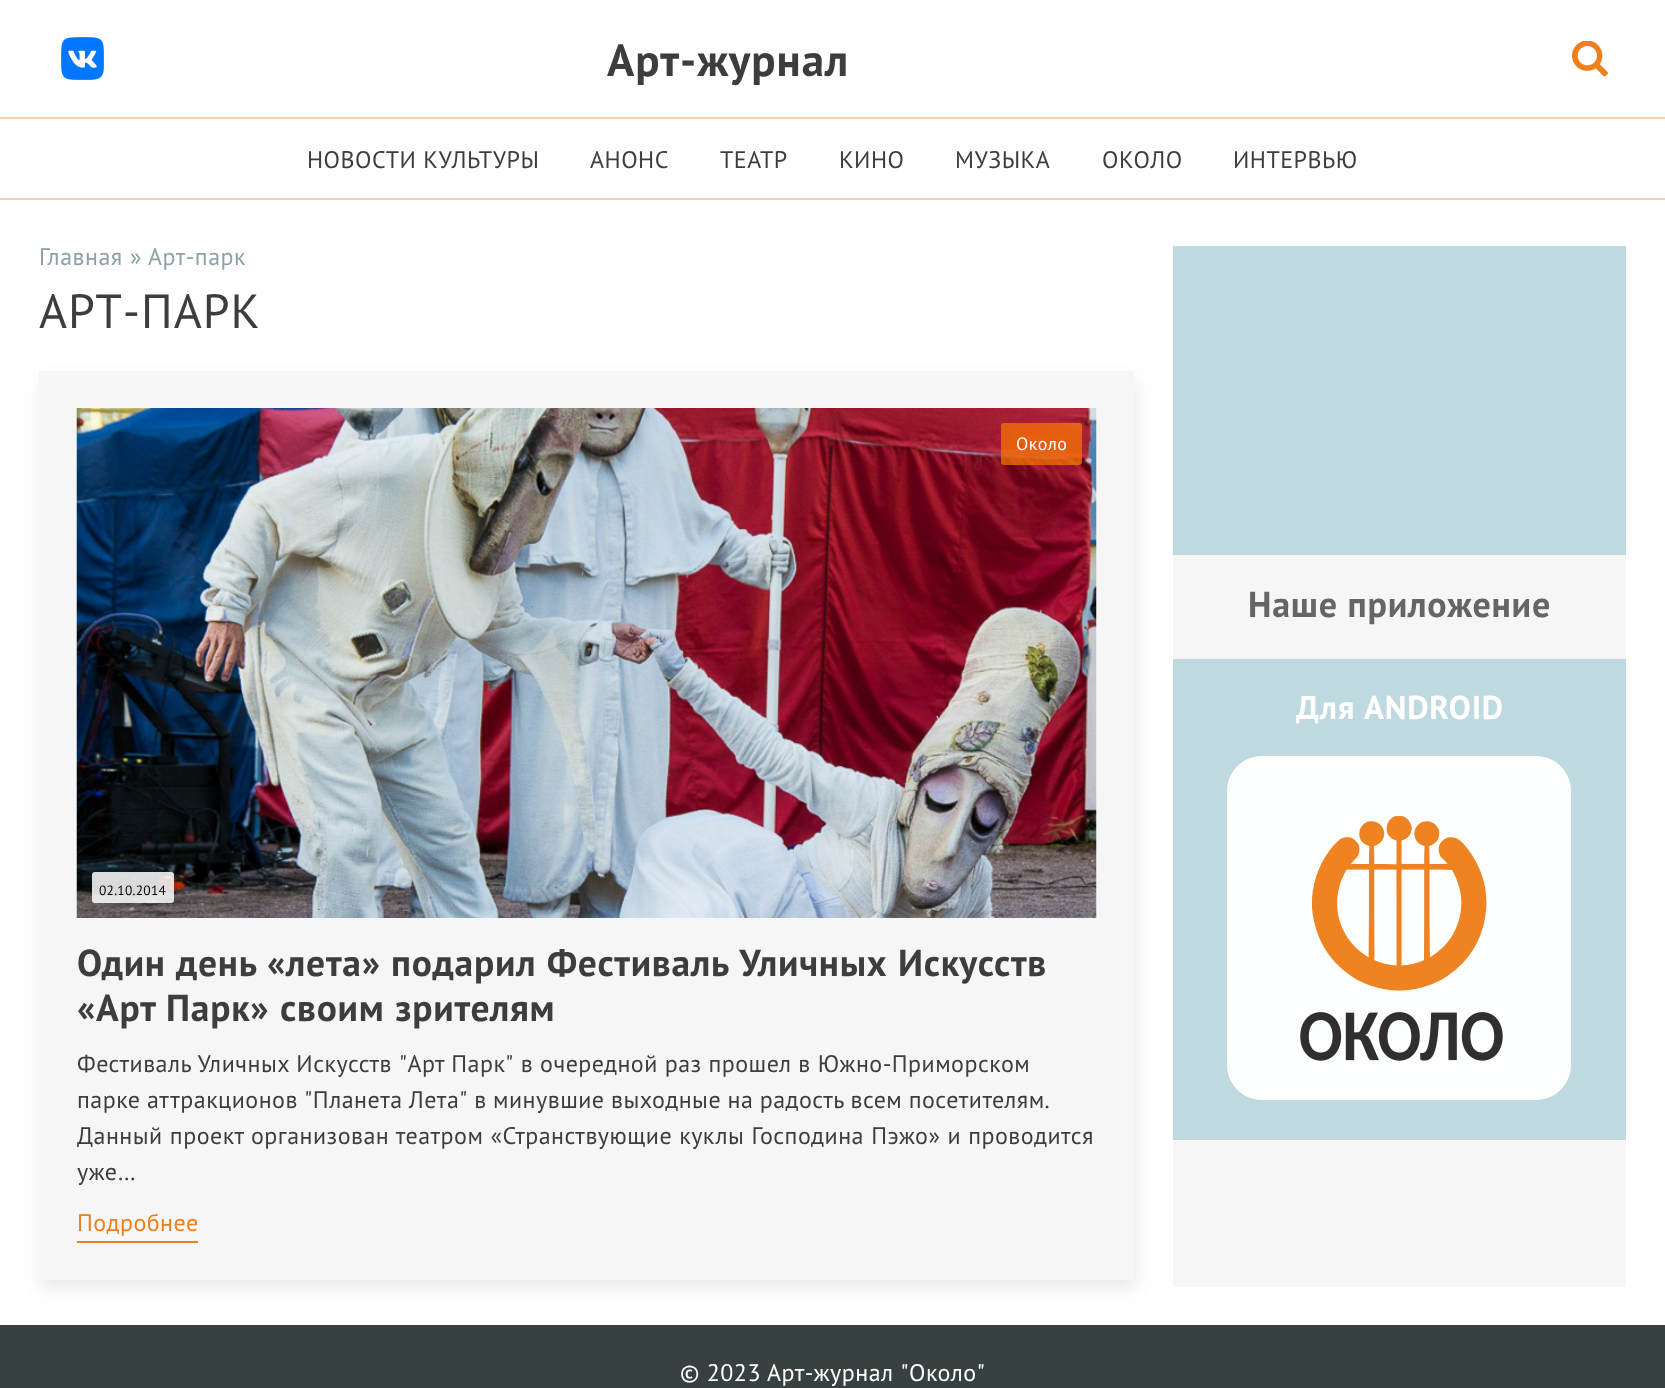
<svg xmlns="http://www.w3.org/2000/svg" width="1665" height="1388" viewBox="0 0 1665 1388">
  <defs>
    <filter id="blur1" x="-50%" y="-200%" width="200%" height="500%"><feGaussianBlur stdDeviation="7.5"/></filter>
  </defs>
  <rect width="100%" height="100%" fill="#ffffff"/>
  <image x="61" y="37" width="43" height="43" href="img1.png"/>
  <text x="607" y="76" font-family="PT Sans" font-size="45" font-weight="bold" letter-spacing="1" fill="#3d3d3d">Арт-журнал</text>
  <image x="1572" y="41" width="36" height="36" href="img2.png"/>
  <rect x="0" y="117" width="1665" height="2" fill="#f7cda7"/>
  <text x="307" y="168" font-family="PT Sans" font-size="24" letter-spacing="0.48" fill="#3d3d3d">НОВОСТИ КУЛЬТУРЫ</text>
  <text x="590" y="168" font-family="PT Sans" font-size="24" letter-spacing="0.48" fill="#3d3d3d">АНОНС</text>
  <text x="720" y="168" font-family="PT Sans" font-size="24" letter-spacing="0.48" fill="#3d3d3d">ТЕАТР</text>
  <text x="839" y="168" font-family="PT Sans" font-size="24" letter-spacing="0.48" fill="#3d3d3d">КИНО</text>
  <text x="955" y="168" font-family="PT Sans" font-size="24" letter-spacing="0.48" fill="#3d3d3d">МУЗЫКА</text>
  <text x="1102" y="168" font-family="PT Sans" font-size="24" letter-spacing="0.48" fill="#3d3d3d">ОКОЛО</text>
  <text x="1233" y="168" font-family="PT Sans" font-size="24" letter-spacing="0.48" fill="#3d3d3d">ИНТЕРВЬЮ</text>
  <rect x="0" y="198" width="1665" height="2" fill="#f7cda7"/>
  <text x="39" y="265" font-family="PT Sans" font-size="24" letter-spacing="0.48" fill="#8ca2a8">Главная</text>
  <text x="130" y="265" font-family="PT Sans" font-size="24" letter-spacing="0.48" fill="#8ca2a8">» Арт-парк</text>
  <text x="39" y="328" font-family="PT Sans" font-size="48" letter-spacing="1" fill="#3d3d3d">АРТ-ПАРК</text>
  <rect x="41" y="380" width="1095" height="909" fill="#888888" fill-opacity="0.18" filter="url(#blur1)"/>
  <rect x="39" y="371" width="1095" height="909" fill="#f6f6f6"/>
  <image x="76" y="408" width="1021" height="510" href="img3.png"/>
  <rect x="1001" y="423" width="81" height="42" rx="3" fill="#ff7900" fill-opacity="0.7"/>
  <text x="1016" y="450" font-family="PT Sans" font-size="18" letter-spacing="0.5" fill="#ffffff">Около</text>
  <rect x="92" y="872" width="82" height="31" rx="3" fill="#ffffff" fill-opacity="0.85"/>
  <text x="99" y="895" font-family="PT Sans" font-size="13.5" letter-spacing="0.25" fill="#000000">02.10.2014</text>
  <text x="77" y="976" font-family="PT Sans" font-size="37.5" font-weight="bold" letter-spacing="0.75" fill="#3d3d3d">Один день «лета» подарил</text>
  <text x="547" y="976" word-spacing="1" font-family="PT Sans" font-size="37.5" font-weight="bold" letter-spacing="0.75" fill="#3d3d3d">Фестиваль Уличных Искусств</text>
  <text x="77" y="1021" word-spacing="0.5" font-family="PT Sans" font-size="37.5" font-weight="bold" letter-spacing="0.75" fill="#3d3d3d">«Арт Парк» своим зрителям</text>
  <text x="77" y="1072" font-family="PT Sans" font-size="24" letter-spacing="0.48" fill="#3d3d3d">Фестиваль Уличных Искусств "Арт Парк" в очередной раз прошел в Южно-Приморском</text>
  <text x="77" y="1108" word-spacing="-0.5" font-family="PT Sans" font-size="24" letter-spacing="0.48" fill="#3d3d3d">парке аттракционов "Планета Лета" в минувшие выходные на радость всем посетителям.</text>
  <text x="77" y="1144" word-spacing="0.25" font-family="PT Sans" font-size="24" letter-spacing="0.48" fill="#3d3d3d">Данный проект организован театром «Странствующие куклы Господина Пэжо» и проводится</text>
  <text x="77" y="1180" font-family="PT Sans" font-size="24" letter-spacing="0.48" fill="#3d3d3d">уже…</text>
  <rect x="77" y="1241" width="121" height="2" fill="#ef7f1a"/>
  <text x="77" y="1231" font-family="PT Sans" font-size="24" letter-spacing="0.48" fill="#ef7f1a">Подробнее</text>
  <rect x="1173" y="555" width="453" height="732" fill="#f6f6f6"/>
  <rect x="1173" y="246" width="453" height="309" fill="#bfd9e1"/>
  <text x="1248" y="617" font-family="PT Sans" font-size="36" font-weight="bold" letter-spacing="0.75" fill="#656565">Наше приложение</text>
  <rect x="1173" y="659" width="453" height="481" fill="#bfd9e1"/>
  <text x="1296" y="719" font-family="PT Sans" font-size="33" font-weight="bold" letter-spacing="0.75" fill="#ffffff">Для ANDROID</text>
  <image x="1227" y="756" width="344" height="344" href="img4.png"/>
  <rect x="0" y="1325" width="1665" height="63" fill="#374140"/>
  <text x="680" y="1381" font-family="PT Sans" font-size="24" letter-spacing="0.48" fill="#ffffff">© 2023 Арт-журнал "Около"</text>
</svg>
